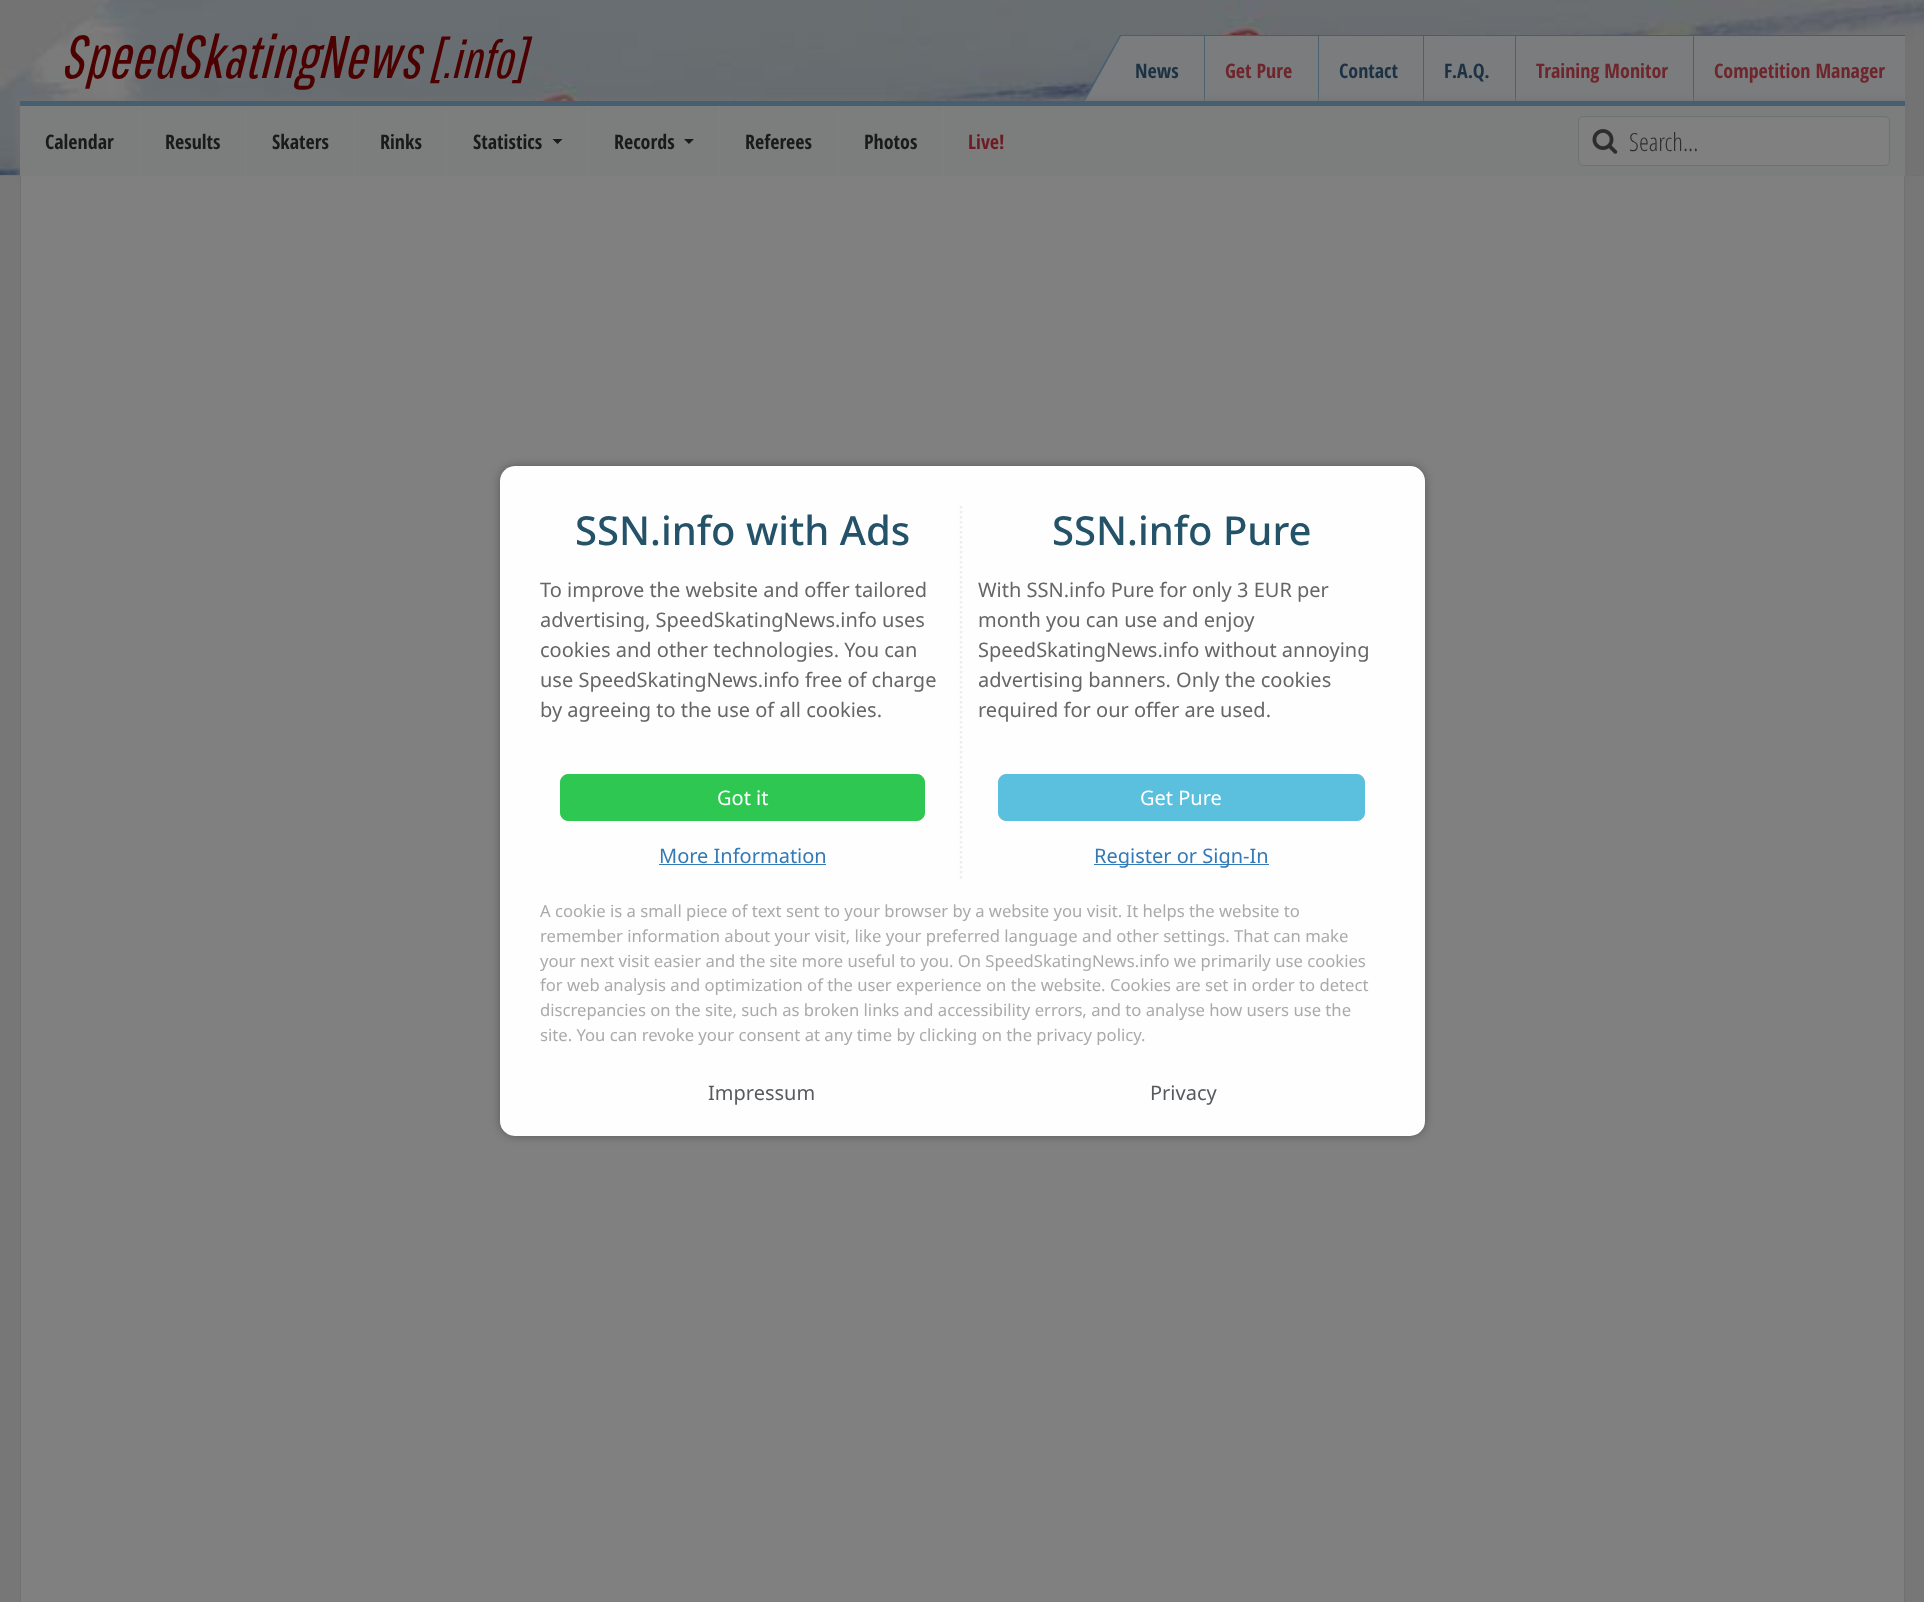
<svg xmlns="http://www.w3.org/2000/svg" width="1924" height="1602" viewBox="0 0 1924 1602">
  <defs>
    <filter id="blur1" x="-50%" y="-200%" width="200%" height="500%"><feGaussianBlur stdDeviation="4"/></filter>
    <filter id="blur2" x="-50%" y="-200%" width="200%" height="500%"><feGaussianBlur stdDeviation="5"/></filter>
  </defs>
  <rect width="100%" height="100%" fill="#777777"/>
  <image x="0" y="0" width="1924" height="175" href="img1.png"/>
  <rect x="0" y="175" width="1924" height="1" fill="#717171"/>
  <text x="60" y="78" font-family="Pathway Gothic One" font-size="60" font-style="italic" fill="#4d0000">SpeedSkatingNews</text>
  <text x="428" y="78" font-family="Pathway Gothic One" font-size="52" font-style="italic" fill="#4d0000">[.info]</text>
  <path d="M1120 35L1075 115H1905V35Z" fill="#465e70" fill-opacity="0.9"/>
  <path d="M1121 36H1905V112H1079Z" fill="#808080" fill-opacity="0.9"/>
  <text x="1135" y="78" font-family="Open Sans Condensed" font-size="20" font-weight="bold" fill="#1c3244">News</text>
  <rect x="1194" y="35" width="11" height="1" fill="#475e70"/>
  <rect x="1204" y="35" width="1" height="69" fill="#465e70" fill-opacity="0.9"/>
  <text x="1225" y="78" font-family="Open Sans Condensed" font-size="20" font-weight="bold" fill="#6f252c">Get Pure</text>
  <rect x="1205" y="35" width="114" height="1" fill="#465e70" fill-opacity="0.9"/>
  <rect x="1318" y="35" width="1" height="69" fill="#465e70" fill-opacity="0.9"/>
  <text x="1339" y="78" font-family="Open Sans Condensed" font-size="20" font-weight="bold" fill="#1c3244">Contact</text>
  <rect x="1423" y="35" width="1" height="69" fill="#465e70" fill-opacity="0.9"/>
  <text x="1444" y="78" font-family="Open Sans Condensed" font-size="20" font-weight="bold" fill="#1c3244">F.A.Q.</text>
  <rect x="1424" y="35" width="23" height="1" fill="#475e70"/>
  <rect x="1515" y="35" width="1" height="69" fill="#465e70" fill-opacity="0.9"/>
  <text x="1536" y="78" font-family="Open Sans Condensed" font-size="20" font-weight="bold" fill="#6f252c">Training Monitor</text>
  <rect x="1516" y="35" width="178" height="1" fill="#465e70" fill-opacity="0.9"/>
  <rect x="1693" y="35" width="1" height="69" fill="#465e70" fill-opacity="0.9"/>
  <text x="1714" y="78" font-family="Open Sans Condensed" font-size="20" font-weight="bold" fill="#6f252c">Competition Manager</text>
  <rect x="1733" y="35" width="172" height="1" fill="#465e70" fill-opacity="0.9"/>
  <rect x="18" y="99" width="1890" height="80" fill="#717171" fill-opacity="0.75" filter="url(#blur1)"/>
  <rect x="20" y="106" width="1885" height="70" fill="#7c7d7d"/>
  <rect x="20" y="101" width="1885" height="5" fill="#465e70"/>
  <rect x="139" y="106" width="1" height="70" fill="#7f7f7f"/>
  <text x="45" y="149" font-family="Open Sans Condensed" font-size="20" font-weight="bold" fill="#1a1a1a">Calendar</text>
  <rect x="245" y="106" width="1" height="70" fill="#7f7f7f"/>
  <text x="165" y="149" font-family="Open Sans Condensed" font-size="20" font-weight="bold" fill="#1a1a1a">Results</text>
  <rect x="354" y="106" width="1" height="70" fill="#7f7f7f"/>
  <text x="272" y="149" font-family="Open Sans Condensed" font-size="20" font-weight="bold" fill="#1a1a1a">Skaters</text>
  <rect x="446" y="106" width="1" height="70" fill="#7f7f7f"/>
  <text x="380" y="149" font-family="Open Sans Condensed" font-size="20" font-weight="bold" fill="#1a1a1a">Rinks</text>
  <rect x="588" y="106" width="1" height="70" fill="#7f7f7f"/>
  <text x="473" y="149" font-family="Open Sans Condensed" font-size="20" font-weight="bold" fill="#1a1a1a">Statistics</text>
  <path d="M552.5 139H562.5L557.5 144Z" fill="#1a1a1a"/>
  <rect x="719" y="106" width="1" height="70" fill="#7f7f7f"/>
  <text x="614" y="149" font-family="Open Sans Condensed" font-size="20" font-weight="bold" fill="#1a1a1a">Records</text>
  <path d="M684 139H694L689 144Z" fill="#1a1a1a"/>
  <rect x="838" y="106" width="1" height="70" fill="#7f7f7f"/>
  <text x="745" y="149" font-family="Open Sans Condensed" font-size="20" font-weight="bold" fill="#1a1a1a">Referees</text>
  <rect x="943" y="106" width="1" height="70" fill="#7f7f7f"/>
  <text x="864" y="149" font-family="Open Sans Condensed" font-size="20" font-weight="bold" fill="#1a1a1a">Photos</text>
  <text x="968" y="149" font-family="Open Sans Condensed" font-size="20" font-weight="bold" fill="#6e1b23">Live!</text>
  <rect x="1579" y="118" width="310" height="47" rx="4" fill="#808080"/>
  <rect x="1578.5" y="116.5" width="311" height="49" rx="4.5" fill="none" stroke="#6f7173"/>
  <image x="1592" y="129" width="26" height="25" href="img2.png"/>
  <text x="1629" y="151" font-family="Open Sans" font-size="25" font-weight="300" fill="#2d2e30">Search...</text>
  <rect x="21" y="176" width="1883" height="1426" fill="#808080"/>
  <rect x="1904" y="176" width="1" height="1426" fill="#717171"/>
  <rect x="20" y="176" width="1" height="1426" fill="#717171"/>
  <rect x="500" y="466" width="925" height="670" rx="15" fill="#000000" fill-opacity="0.3" filter="url(#blur2)"/>
  <rect x="500" y="466" width="925" height="670" rx="15" fill="#fefefe"/>
  <path d="M961 506V879" fill="none" stroke="#eeeeee" stroke-width="2.5" stroke-dasharray="2.5 2.5"/>
  <text x="575" y="545" font-family="Noto Sans" font-size="40" font-weight="500" fill="#245269">SSN.info with Ads</text>
  <text x="540" y="597" font-family="Noto Sans" font-size="20" fill="#666666">To improve the website and offer tailored</text>
  <text x="540" y="627" font-family="Noto Sans" font-size="20" fill="#666666">advertising, SpeedSkatingNews.info uses</text>
  <text x="540" y="657" font-family="Noto Sans" font-size="20" fill="#666666">cookies and other technologies. You can</text>
  <text x="540" y="687" font-family="Noto Sans" font-size="20" fill="#666666">use SpeedSkatingNews.info free of charge</text>
  <text x="540" y="717" font-family="Noto Sans" font-size="20" fill="#666666">by agreeing to the use of all cookies.</text>
  <rect x="560.5" y="774.5" width="364" height="46" rx="7.5" fill="#2ec751" stroke="#2ec751"/>
  <text x="717" y="805" font-family="Noto Sans" font-size="20" fill="#ffffff">Got it</text>
  <text x="659" y="863" font-family="Noto Sans" font-size="20" fill="#337ab7">More Information</text>
  <rect x="659" y="864" width="167" height="1" fill="#337ab7"/>
  <text x="1052" y="545" font-family="Noto Sans" font-size="40" font-weight="500" fill="#245269">SSN.info Pure</text>
  <text x="978" y="597" font-family="Noto Sans" font-size="20" fill="#666666">With SSN.info Pure for only 3 EUR per</text>
  <text x="978" y="627" font-family="Noto Sans" font-size="20" fill="#666666">month you can use and enjoy</text>
  <text x="978" y="657" font-family="Noto Sans" font-size="20" fill="#666666">SpeedSkatingNews.info without annoying</text>
  <text x="978" y="687" font-family="Noto Sans" font-size="20" fill="#666666">advertising banners. Only the cookies</text>
  <text x="978" y="717" font-family="Noto Sans" font-size="20" fill="#666666">required for our offer are used.</text>
  <rect x="998.5" y="774.5" width="366" height="46" rx="7.5" fill="#5bc0de" stroke="#5bc0de"/>
  <text x="1140" y="805" font-family="Noto Sans" font-size="20" fill="#ffffff">Get Pure</text>
  <rect x="1094" y="864" width="175" height="1" fill="#337ab7"/>
  <text x="1094" y="863" font-family="Noto Sans" font-size="20" fill="#337ab7">Register or Sign-In</text>
  <text x="540" y="917" font-family="Noto Sans" font-size="16.65" fill="#aaaaaa">A cookie is a small piece of text sent to your browser by a website you visit. It helps the website to</text>
  <text x="540" y="942" font-family="Noto Sans" font-size="16.65" fill="#aaaaaa">remember information about your visit, like your preferred language and other settings. That can make</text>
  <text x="540" y="967" font-family="Noto Sans" font-size="16.65" fill="#aaaaaa">your next visit easier and the site more useful to you. On SpeedSkatingNews.info we primarily use cookies</text>
  <text x="540" y="991" font-family="Noto Sans" font-size="16.65" fill="#aaaaaa">for web analysis and optimization of the user experience on the website. Cookies are set in order to detect</text>
  <text x="540" y="1016" font-family="Noto Sans" font-size="16.65" fill="#aaaaaa">discrepancies on the site, such as broken links and accessibility errors, and to analyse how users use the</text>
  <text x="540" y="1041" font-family="Noto Sans" font-size="16.65" fill="#aaaaaa">site. You can revoke your consent at any time by clicking on the privacy policy.</text>
  <text x="708" y="1100" font-family="Noto Sans" font-size="20" fill="#585b5e">Impressum</text>
  <text x="1150" y="1100" font-family="Noto Sans" font-size="20" fill="#585b5e">Privacy</text>
</svg>
